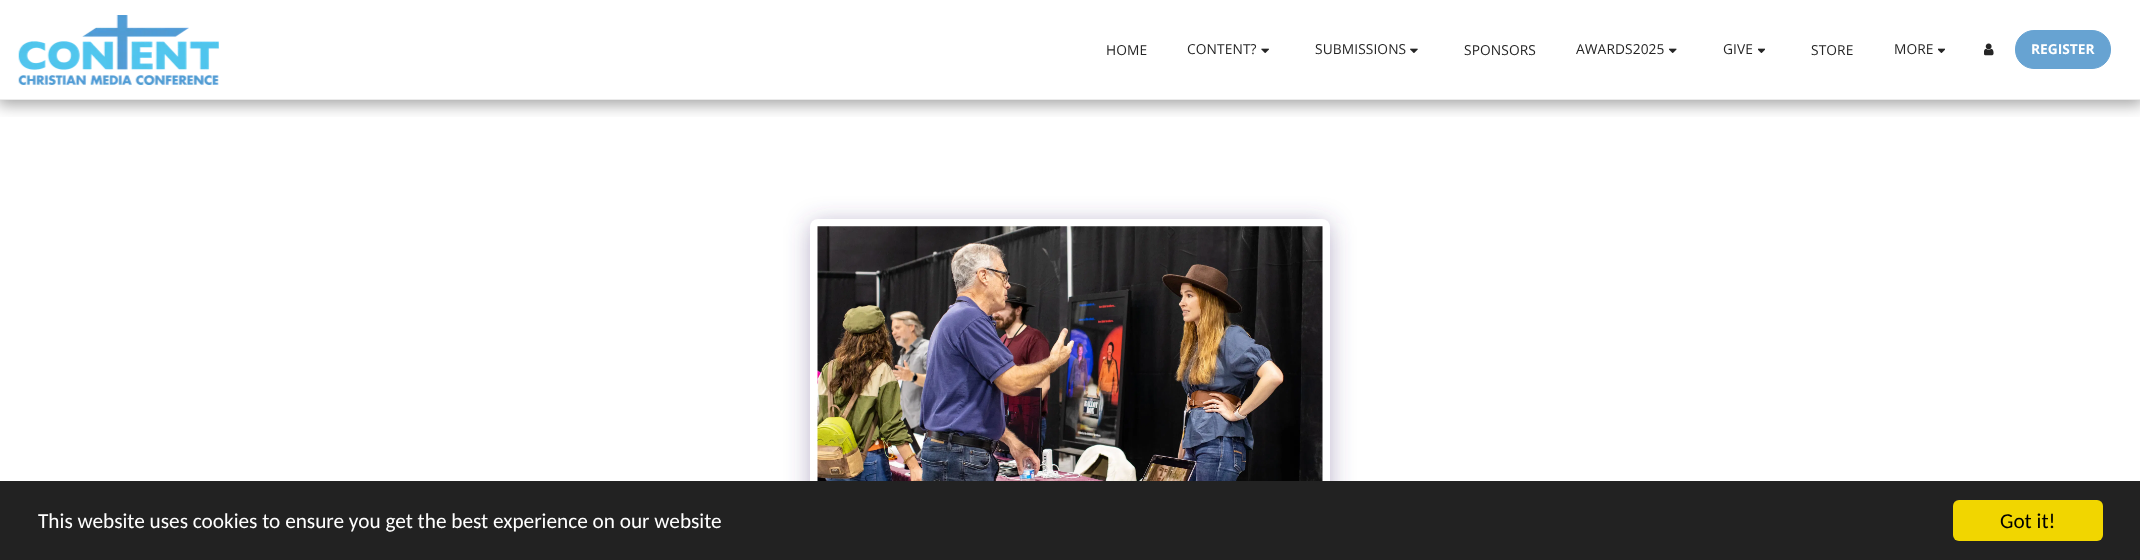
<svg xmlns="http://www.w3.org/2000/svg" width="2140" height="560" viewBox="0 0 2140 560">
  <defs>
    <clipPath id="clip1"><rect x="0" y="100" width="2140" height="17"/></clipPath>
    <filter id="blur1" x="-50%" y="-200%" width="200%" height="500%"><feGaussianBlur stdDeviation="7.5"/></filter>
    <filter id="blur2" x="-50%" y="-200%" width="200%" height="500%"><feGaussianBlur stdDeviation="12.5"/></filter>
  </defs>
  <rect width="100%" height="100%" fill="#ffffff"/>
  <g clip-path="url(#clip1)">
    <rect x="-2" y="0" width="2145" height="105" fill="#000000" fill-opacity="0.35" filter="url(#blur1)"/>
  </g>
  <rect x="0" y="99" width="2140" height="1" fill="#ebebeb"/>
  <image x="18" y="15" width="201" height="70" href="img1.png"/>
  <text x="1106" y="55" font-family="Open Sans" font-size="13.75" letter-spacing="0.1" fill="#252525">HOME</text>
  <text x="1187" y="54" font-family="Open Sans" font-size="13.75" letter-spacing="0.1" fill="#252525">CONTENT?</text>
  <image x="1261" y="48" width="8" height="5" href="img2.png"/>
  <text x="1315" y="54" font-family="Open Sans" font-size="13.75" letter-spacing="0.1" fill="#252525">SUBMISSIONS</text>
  <image x="1410" y="48" width="8" height="5" href="img3.png"/>
  <text x="1464" y="55" font-family="Open Sans" font-size="13.75" letter-spacing="0.1" fill="#252525">SPONSORS</text>
  <text x="1576" y="54" font-family="Open Sans" font-size="13.75" letter-spacing="0.1" fill="#252525">AWARDS2025</text>
  <image x="1669" y="48" width="8" height="5" href="img4.png"/>
  <text x="1723" y="54" font-family="Open Sans" font-size="13.75" letter-spacing="0.1" fill="#252525">GIVE</text>
  <image x="1758" y="48" width="7" height="5" href="img5.png"/>
  <text x="1811" y="55" font-family="Open Sans" font-size="13.75" letter-spacing="0.1" fill="#252525">STORE</text>
  <text x="1894" y="54" font-family="Open Sans" font-size="13.75" letter-spacing="0.1" fill="#252525">MORE</text>
  <image x="1938" y="48" width="7" height="5" href="img5.png"/>
  <image x="1984" y="43" width="10" height="13" href="img6.png"/>
  <rect x="2015.5" y="30.5" width="95" height="38" rx="18.5" fill="#67a3d2" stroke="#67a3d2"/>
  <text x="2031" y="54" font-family="Open Sans" font-size="13.75" font-weight="bold" fill="#ffffff">REGISTER</text>
  <rect x="810" y="223" width="520" height="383" rx="8" fill="#4d3f7a" fill-opacity="0.4" filter="url(#blur2)"/>
  <rect x="810" y="219" width="520" height="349" rx="8" fill="#ffffff"/>
  <image x="817" y="226" width="506" height="255" href="img7.png"/>
  <rect x="0" y="481" width="2140" height="79" fill="#222222"/>
  <text x="38" y="528" font-family="Carlito" font-size="21.25" fill="#ffffff">This website uses cookies to ensure you get the best experience on our website</text>
  <rect x="1953" y="500" width="150" height="41" rx="6" fill="#f1d600"/>
  <text x="2000" y="528" font-family="Carlito" font-size="21.25" fill="#000000">Got it!</text>
</svg>
